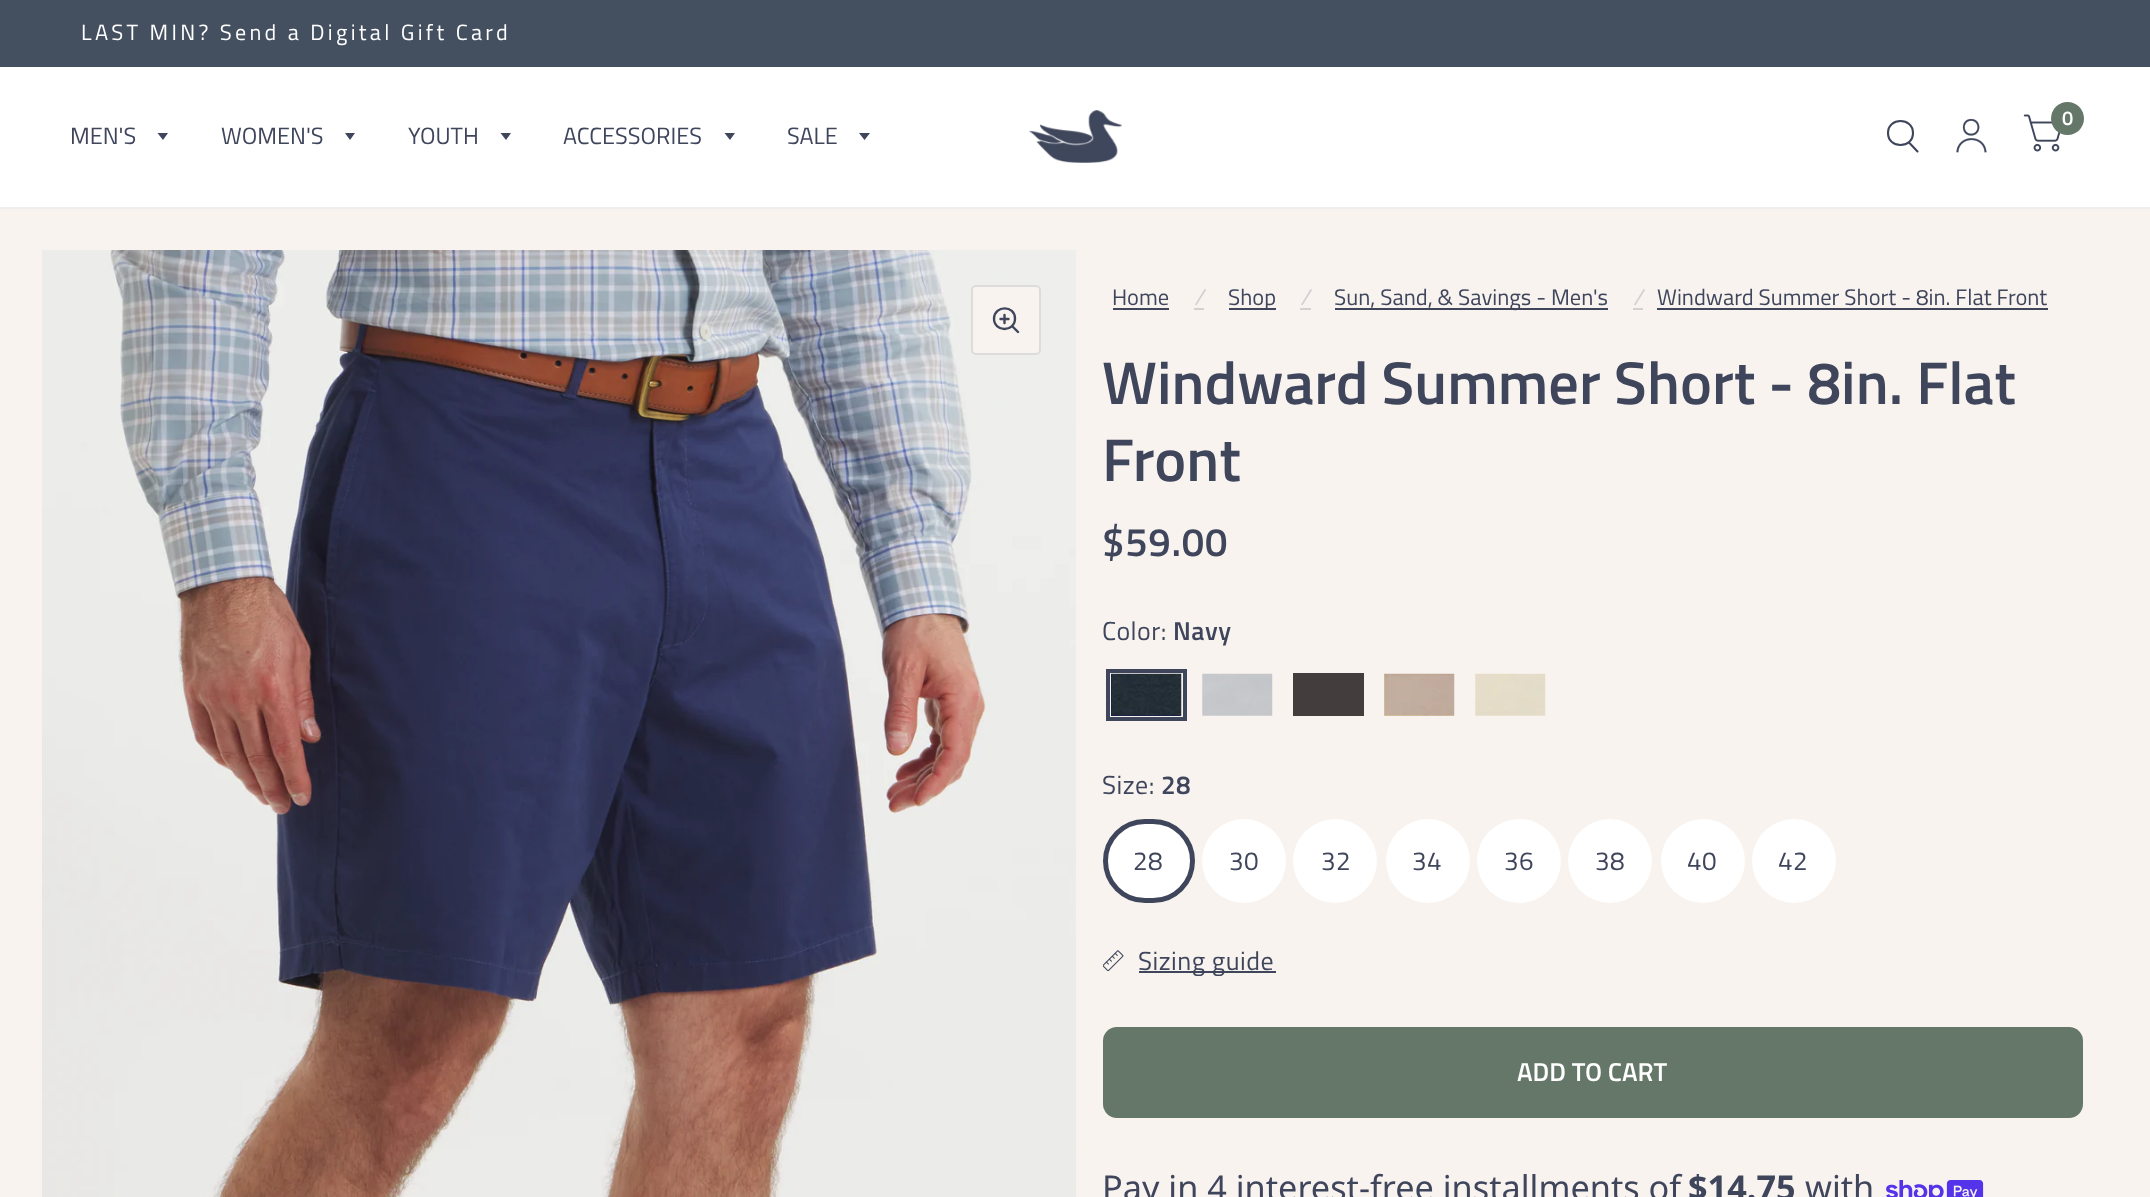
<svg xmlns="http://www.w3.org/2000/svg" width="2150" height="1197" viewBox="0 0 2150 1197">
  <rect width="100%" height="100%" fill="#f8f3ef"/>
  <rect x="0" y="0" width="2150" height="67" fill="#444f60"/>
  <text x="81" y="40" font-family="Titillium Web" font-size="22.1" letter-spacing="3.3" fill="#ffffff">LAST MIN? Send a Digital Gift Card</text>
  <rect x="0" y="67" width="2150" height="140" fill="#ffffff"/>
  <rect x="0" y="207" width="2150" height="2" fill="#eeeeee"/>
  <image x="1029" y="110" width="93" height="53" href="img1.png"/>
  <path d="M1909 142.5L1917.5 151.5M1913 133C1913 149 1888 149 1888 133C1888 117 1913 117 1913 133Z" fill="none" stroke="#3f465c" stroke-width="2.1" stroke-linecap="round" stroke-linejoin="round"/>
  <image x="1956" y="118" width="31" height="35" href="img2.png"/>
  <image x="2023" y="114" width="38" height="38" href="img3.png"/>
  <circle cx="2067.5" cy="118.5" r="16.5" fill="#647769"/>
  <text x="2062" y="125" font-family="Titillium Web" font-size="20" font-weight="600" fill="#ffffff">0</text>
  <text x="70" y="144" font-family="Titillium Web" font-size="23.5" fill="#3f465c">MEN'S</text>
  <path d="M157.5 133H168L163 140Z" fill="#3f465c"/>
  <text x="221" y="144" font-family="Titillium Web" font-size="23.5" fill="#3f465c">WOMEN'S</text>
  <path d="M345 133H355L350 140Z" fill="#3f465c"/>
  <text x="408" y="144" font-family="Titillium Web" font-size="23.5" fill="#3f465c">YOUTH</text>
  <path d="M500.5 133H511L506 140Z" fill="#3f465c"/>
  <text x="563" y="144" font-family="Titillium Web" font-size="23.5" fill="#3f465c">ACCESSORIES</text>
  <path d="M724.5 133H735L730 140Z" fill="#3f465c"/>
  <text x="787" y="144" font-family="Titillium Web" font-size="23.5" fill="#3f465c">SALE</text>
  <path d="M859 133H870L864.5 140Z" fill="#3f465c"/>
  <image x="42" y="250" width="1034" height="947" href="img4.png"/>
  <rect x="972" y="286" width="68" height="68" rx="4" fill="#f8f3ef" stroke="#dcdcdc" stroke-width="2"/>
  <path d="M1000.5 319H1008.5M1004.5 315V323M1012 326L1018 332M1015 318.5C1015 332.5 994 332.5 994 318.5C994.5 305 1015 305 1015 318.5Z" fill="none" stroke="#3f465c" stroke-width="2.4" stroke-linecap="round" stroke-linejoin="round"/>
  <text x="1112" y="305" font-family="Titillium Web" font-size="22.5" fill="#3f465c">Home</text>
  <rect x="1113" y="308" width="56" height="2" fill="#3f465c"/>
  <text x="1194" y="305" font-family="Titillium Web" font-size="22.5" font-style="italic" fill="#d3d0d2">/</text>
  <rect x="1194" y="308" width="10" height="2" fill="#d3d0d2"/>
  <rect x="1229" y="308" width="47" height="2" fill="#3f465c"/>
  <text x="1228" y="305" font-family="Titillium Web" font-size="22.5" fill="#3f465c">Shop</text>
  <text x="1300" y="305" font-family="Titillium Web" font-size="22.5" font-style="italic" fill="#d3d0d2">/</text>
  <rect x="1300" y="308" width="11" height="2" fill="#d3d0d2"/>
  <rect x="1335" y="308" width="273" height="2" fill="#3f465c"/>
  <text x="1334" y="305" font-family="Titillium Web" font-size="22.5" fill="#3f465c">Sun, Sand, &amp; Savings - Men's</text>
  <text x="1633" y="305" font-family="Titillium Web" font-size="22.5" font-style="italic" fill="#d3d0d2">/</text>
  <rect x="1633" y="308" width="10" height="2" fill="#d3d0d2"/>
  <text x="1657" y="305" font-family="Titillium Web" font-size="22.5" fill="#3f465c">Windward Summer Short - 8in. Flat Front</text>
  <rect x="1657" y="308" width="391" height="2" fill="#3f465c"/>
  <text x="1102" y="404" font-family="Titillium Web" font-size="60.4" font-weight="600" fill="#3f465c">Windward Summer Short - 8in. Flat</text>
  <text x="1102" y="481" font-family="Titillium Web" font-size="60.4" font-weight="600" fill="#3f465c">Front</text>
  <text x="1102" y="556" font-family="Titillium Web" font-size="40" font-weight="600" letter-spacing="0.75" fill="#3f465c">$59.00</text>
  <text x="1102" y="640" font-family="Titillium Web" font-size="26" letter-spacing="0.5" fill="#3f465c">Color:</text>
  <text x="1173" y="640" font-family="Titillium Web" font-size="26" font-weight="600" letter-spacing="0.5" fill="#3f465c">Navy</text>
  <rect x="1108" y="671" width="77" height="48" fill="none" stroke="#3f465c" stroke-width="4"/>
  <rect x="1111" y="674" width="70" height="42" fill="#000080"/>
  <image x="1111" y="673" width="71" height="43" href="img5.png"/>
  <image x="1202" y="673" width="71" height="43" href="img6.png"/>
  <rect x="1293" y="673" width="71" height="43" fill="#443d3d"/>
  <rect x="1384" y="674" width="70" height="42" fill="#f0e68c"/>
  <image x="1384" y="673" width="71" height="43" href="img7.png"/>
  <image x="1475" y="673" width="71" height="43" href="img8.png"/>
  <text x="1102" y="794" font-family="Titillium Web" font-size="26" letter-spacing="0.5" fill="#3f465c">Size:</text>
  <text x="1161" y="794" font-family="Titillium Web" font-size="26" font-weight="600" letter-spacing="0.5" fill="#3f465c">28</text>
  <rect x="1105.5" y="821.5" width="87" height="79" rx="39.5" fill="#ffffff" stroke="#3f465c" stroke-width="5"/>
  <text x="1133" y="870" font-family="Titillium Web" font-size="26" letter-spacing="0.5" fill="#3f465c">28</text>
  <circle cx="1244" cy="861" r="42" fill="#ffffff"/>
  <text x="1229" y="870" font-family="Titillium Web" font-size="26" letter-spacing="0.5" fill="#3f465c">30</text>
  <circle cx="1335" cy="861" r="42" fill="#ffffff"/>
  <text x="1321" y="870" font-family="Titillium Web" font-size="26" letter-spacing="0.5" fill="#3f465c">32</text>
  <circle cx="1428" cy="861" r="42" fill="#ffffff"/>
  <text x="1412" y="870" font-family="Titillium Web" font-size="26" letter-spacing="0.5" fill="#3f465c">34</text>
  <circle cx="1519" cy="861" r="42" fill="#ffffff"/>
  <text x="1504" y="870" font-family="Titillium Web" font-size="26" letter-spacing="0.5" fill="#3f465c">36</text>
  <circle cx="1610" cy="861" r="42" fill="#ffffff"/>
  <text x="1595" y="870" font-family="Titillium Web" font-size="26" letter-spacing="0.5" fill="#3f465c">38</text>
  <circle cx="1703" cy="861" r="42" fill="#ffffff"/>
  <text x="1687" y="870" font-family="Titillium Web" font-size="26" letter-spacing="0.5" fill="#3f465c">40</text>
  <circle cx="1794" cy="861" r="42" fill="#ffffff"/>
  <text x="1778" y="870" font-family="Titillium Web" font-size="26" letter-spacing="0.5" fill="#3f465c">42</text>
  <image x="1103" y="950" width="21" height="21" href="img9.png"/>
  <rect x="1139" y="971" width="137" height="2" fill="#3f465c"/>
  <text x="1138" y="970" font-family="Titillium Web" font-size="26" letter-spacing="0.5" fill="#3f465c">Sizing guide</text>
  <rect x="1103" y="1027" width="980" height="91" rx="14" fill="#647769"/>
  <text x="1517" y="1081" font-family="Titillium Web" font-size="26" font-weight="600" fill="#ffffff">ADD TO CART</text>
  <text x="1102" y="1200" font-family="Noto Sans" font-size="34.25" fill="#3f465c">Pay in 4 interest-free installments of</text>
  <text x="1688" y="1200" font-family="Noto Sans" font-size="34.25" font-weight="bold" fill="#3f465c">$14.75</text>
  <text x="1805" y="1200" font-family="Noto Sans" font-size="34.25" fill="#3f465c">with</text>
  <image x="1886" y="1180" width="98" height="17" href="img10.png"/>
</svg>
